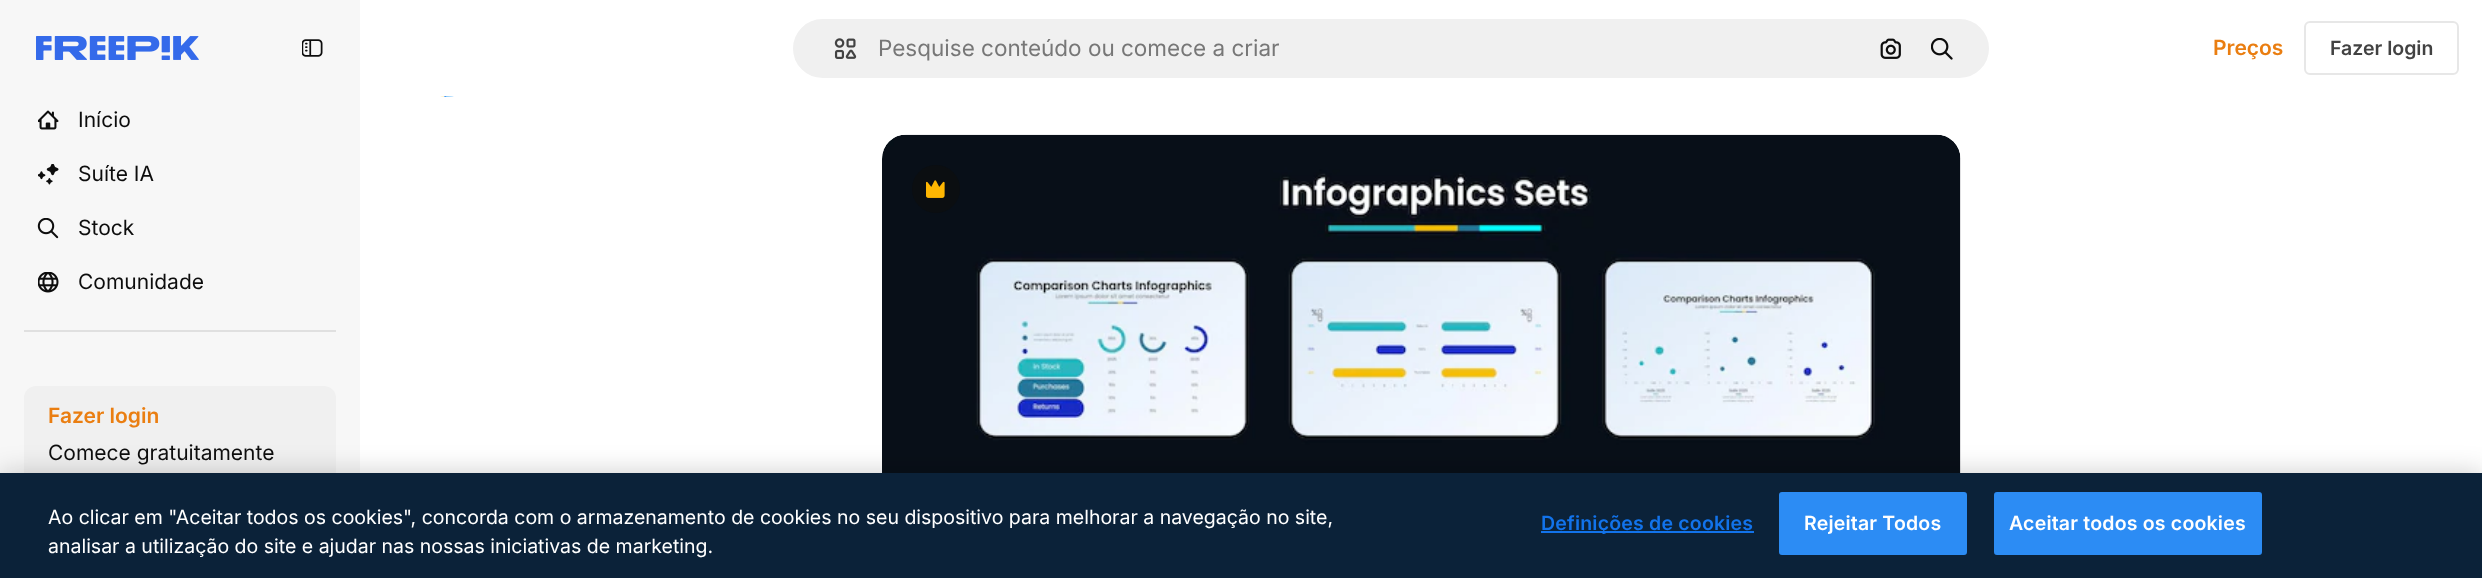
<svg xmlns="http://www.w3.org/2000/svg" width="2482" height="578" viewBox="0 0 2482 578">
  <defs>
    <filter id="blur1" x="-50%" y="-200%" width="200%" height="500%"><feGaussianBlur stdDeviation="13.5"/></filter>
  </defs>
  <rect width="100%" height="100%" fill="#ffffff"/>
  <rect x="792" y="18" width="1198" height="61" rx="30.5" fill="#f0f0f0" stroke="#ffffff" stroke-width="2"/>
  <image x="834" y="38" width="23" height="21" href="img1.png"/>
  <text x="878" y="56" font-family="Inter" font-size="22.5" fill="#777777">Pesquise conteúdo ou comece a criar</text>
  <image x="1880" y="38" width="21" height="21" href="img2.png"/>
  <image x="1931" y="38" width="22" height="22" href="img3.png"/>
  <text x="2213" y="55" font-family="Inter" font-size="21" font-weight="600" fill="#ea7e11">Preços</text>
  <rect x="2305" y="22" width="153" height="52" rx="5" fill="none" stroke="#e7e7e7" stroke-width="2"/>
  <text x="2330" y="55" font-family="Inter" font-size="19.5" font-weight="600" fill="#424242">Fazer login</text>
  <image x="440" y="96" width="14" height="1" href="img4.png"/>
  <image x="882" y="134" width="1079" height="339" href="img5.png"/>
  <circle cx="936" cy="189" r="24" fill="#0b0e11"/>
  <image x="926" y="180" width="19" height="18" href="img6.png"/>
  <rect x="0" y="0" width="360" height="473" fill="#f7f7f7"/>
  <image x="36" y="36" width="163" height="24" href="img7.png"/>
  <image x="302" y="39" width="21" height="18" href="img8.png"/>
  <image x="38" y="110" width="21" height="20" href="img9.png"/>
  <text x="78" y="127" font-family="Inter" font-size="21" fill="#0d0d0d">Início</text>
  <image x="38" y="164" width="21" height="21" href="img10.png"/>
  <text x="78" y="181" font-family="Inter" font-size="21" fill="#0d0d0d">Suíte IA</text>
  <image x="37" y="218" width="22" height="21" href="img11.png"/>
  <text x="78" y="235" font-family="Inter" font-size="21" fill="#0d0d0d">Stock</text>
  <image x="38" y="272" width="21" height="21" href="img12.png"/>
  <text x="78" y="289" font-family="Inter" font-size="21" fill="#0d0d0d">Comunidade</text>
  <rect x="24" y="330" width="312" height="2" fill="#e0e0e0"/>
  <rect x="24" y="386" width="312" height="97" rx="12" fill="#f0f0f0"/>
  <text x="48" y="423" font-family="Inter" font-size="21" font-weight="600" fill="#ea7e11">Fazer login</text>
  <text x="48" y="460" font-family="Inter" font-size="21" fill="#0d0d0d">Comece gratuitamente</text>
  <rect x="0" y="473" width="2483" height="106" fill="#000000" fill-opacity="0.2" filter="url(#blur1)"/>
  <rect x="0" y="473" width="2482" height="105" fill="#0b2239"/>
  <text x="48" y="524" font-family="Inter" font-size="19.5" fill="#ffffff">Ao clicar em "Aceitar todos os cookies", concorda com o armazenamento de cookies no seu dispositivo para melhorar a navegação no site,</text>
  <text x="48" y="553" font-family="Inter" font-size="19.5" fill="#ffffff">analisar a utilização do site e ajudar nas nossas iniciativas de marketing.</text>
  <rect x="1541" y="531" width="213" height="2" fill="#1273eb"/>
  <text x="1541" y="530" font-family="Inter" font-size="19.5" font-weight="600" letter-spacing="0.2" fill="#1273eb">Definições de cookies</text>
  <rect x="1780" y="493" width="186" height="61" rx="2" fill="#2c8cf4" stroke="#2c8cf4" stroke-width="2"/>
  <text x="1804" y="530" font-family="Inter" font-size="19.5" font-weight="600" letter-spacing="0.2" fill="#ffffff">Rejeitar Todos</text>
  <rect x="1995" y="493" width="266" height="61" rx="2" fill="#2c8cf4" stroke="#2c8cf4" stroke-width="2"/>
  <text x="2009" y="530" font-family="Inter" font-size="19.5" font-weight="600" letter-spacing="0.2" fill="#ffffff">Aceitar todos os cookies</text>
</svg>
